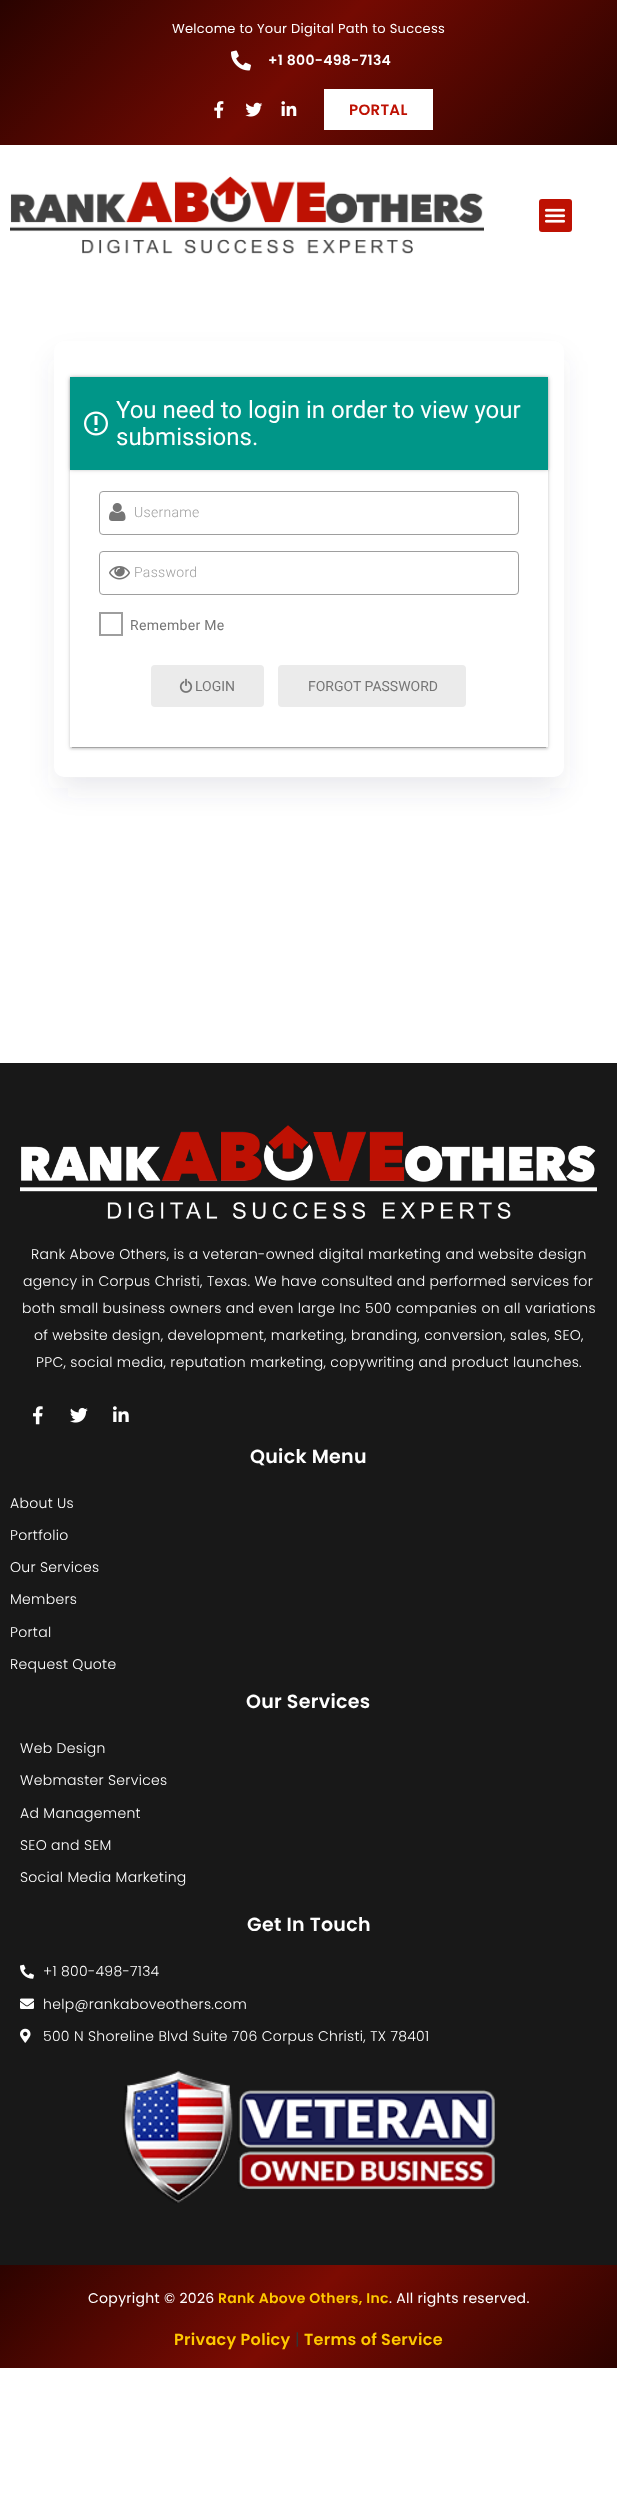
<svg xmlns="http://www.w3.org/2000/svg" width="617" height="2519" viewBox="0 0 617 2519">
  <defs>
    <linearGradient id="g1" gradientUnits="userSpaceOnUse" x1="499" y1="263" x2="118" y2="-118"><stop offset="0" stop-color="#290300"/><stop offset="0.52" stop-color="#740a02"/><stop offset="1" stop-color="#290300"/></linearGradient>
    <filter id="blur1" x="-50%" y="-200%" width="200%" height="500%"><feGaussianBlur stdDeviation="14.5"/></filter>
    <clipPath id="clip1"><path d="M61 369H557V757H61ZM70 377H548V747H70Z" clip-rule="evenodd"/></clipPath>
    <filter id="blur2" x="-50%" y="-200%" width="200%" height="500%"><feGaussianBlur stdDeviation="2.5"/></filter>
    <clipPath id="clip2"><rect x="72" y="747" width="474" height="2"/></clipPath>
    <filter id="blur3" x="-50%" y="-200%" width="200%" height="500%"><feGaussianBlur stdDeviation="0.5"/></filter>
    <clipPath id="clip3"><path d="M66 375H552V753H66ZM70 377H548V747H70Z" clip-rule="evenodd"/></clipPath>
    <filter id="blur4" x="-50%" y="-200%" width="200%" height="500%"><feGaussianBlur stdDeviation="1"/></filter>
    <linearGradient id="g2" gradientUnits="userSpaceOnUse" x1="489" y1="2497" x2="128" y2="2137"><stop offset="0" stop-color="#2c0300"/><stop offset="0.52" stop-color="#7c0b02"/><stop offset="1" stop-color="#2c0300"/></linearGradient>
  </defs>
  <rect width="100%" height="100%" fill="#ffffff"/>
  <rect x="0" y="0" width="617" height="145" fill="url(#g1)"/>
  <text x="172" y="33" font-family="Poppins" font-size="13" letter-spacing="0.3" fill="#ffffff">Welcome to Your Digital Path to Success</text>
  <image x="231" y="50" width="20" height="21" href="img1.png"/>
  <text x="268" y="65" font-family="Poppins" font-size="14" font-weight="600" letter-spacing="0.3" fill="#ffffff">+1 800-498-7134</text>
  <image x="214" y="101" width="10" height="18" href="img2.png"/>
  <image x="245" y="102" width="18" height="15" href="img3.png"/>
  <image x="281" y="101" width="16" height="15" href="img4.png"/>
  <rect x="324" y="89" width="109" height="41" fill="#ffffff"/>
  <text x="349" y="115" font-family="Poppins" font-size="15" font-weight="600" letter-spacing="0.3" fill="#be1103">PORTAL</text>
  <image x="10" y="176" width="474" height="78" href="img5.png"/>
  <rect x="539" y="199" width="33" height="33" rx="3" fill="#be1103"/>
  <image x="544" y="208" width="22" height="15" href="img6.png"/>
  <rect x="58" y="360" width="502" height="428" rx="6" fill="#3f4962" fill-opacity="0.12" filter="url(#blur1)"/>
  <rect x="54" y="341" width="510" height="436" rx="10" fill="#ffffff"/>
  <g clip-path="url(#clip1)">
    <rect x="70" y="378" width="478" height="370" fill="#000000" fill-opacity="0.12" filter="url(#blur2)"/>
  </g>
  <g clip-path="url(#clip2)">
    <rect x="72" y="382" width="474" height="366" fill="#000000" fill-opacity="0.2" filter="url(#blur3)"/>
  </g>
  <g clip-path="url(#clip3)">
    <rect x="70" y="379" width="478" height="370" fill="#000000" fill-opacity="0.14" filter="url(#blur4)"/>
  </g>
  <rect x="70" y="377" width="478" height="93" fill="#000000" fill-opacity="0.12" filter="url(#blur2)"/>
  <rect x="70" y="377" width="478" height="93" fill="#000000" fill-opacity="0.14" filter="url(#blur4)"/>
  <rect x="70" y="377" width="478" height="93" fill="#009688"/>
  <image x="84" y="411" width="24" height="25" href="img7.png"/>
  <text x="116" y="418" font-family="Roboto" font-size="24" fill="#ffffff">You need to login in order to view your</text>
  <text x="116" y="445" font-family="Roboto" font-size="24" fill="#ffffff">submissions.</text>
  <rect x="99.5" y="491.5" width="419" height="43" rx="3.5" fill="none" stroke="#9e9e9e"/>
  <image x="109" y="503" width="17" height="18" href="img8.png"/>
  <text x="134" y="517" font-family="Roboto" font-size="14" font-weight="300" letter-spacing="0.3" fill="#9e9e9e">Username</text>
  <rect x="99.5" y="551.5" width="419" height="43" rx="3.5" fill="none" stroke="#9e9e9e"/>
  <image x="109" y="566" width="21" height="14" href="img9.png"/>
  <text x="134" y="577" font-family="Roboto" font-size="14" font-weight="300" letter-spacing="0.3" fill="#9e9e9e">Password</text>
  <rect x="100" y="613" width="22" height="22" fill="none" stroke="#9e9e9e" stroke-width="2"/>
  <text x="130" y="630" font-family="Roboto" font-size="14" letter-spacing="0.3" fill="#757575">Remember Me</text>
  <rect x="151" y="665" width="113" height="42" rx="4" fill="#ebebeb"/>
  <image x="179" y="678" width="14" height="15" href="img10.png"/>
  <text x="195" y="691" font-family="Roboto" font-size="14" fill="#757575">LOGIN</text>
  <rect x="278" y="665" width="188" height="42" rx="4" fill="#ebebeb"/>
  <text x="308" y="691" font-family="Roboto" font-size="14" fill="#757575">FORGOT PASSWORD</text>
  <rect x="0" y="1063" width="617" height="1202" fill="#181818"/>
  <image x="20" y="1125" width="577" height="95" href="img11.png"/>
  <text x="31" y="1259" font-family="Poppins" font-size="14" font-weight="300" letter-spacing="0.3" fill="#ffffff">Rank Above Others, is a veteran-owned digital marketing and website design</text>
  <text x="23" y="1286" font-family="Poppins" font-size="14" font-weight="300" letter-spacing="0.3" fill="#ffffff">agency in Corpus Christi, Texas. We have consulted and performed services for</text>
  <text x="22" y="1313" font-family="Poppins" font-size="14" font-weight="300" letter-spacing="0.3" fill="#ffffff">both small business owners and even large Inc 500 companies on all variations</text>
  <text x="34" y="1340" font-family="Poppins" font-size="14" font-weight="300" letter-spacing="0.3" fill="#ffffff">of website design, development, marketing, branding, conversion, sales, SEO,</text>
  <text x="36" y="1367" font-family="Poppins" font-size="14" font-weight="300" letter-spacing="0.3" fill="#ffffff">PPC, social media, reputation marketing, copywriting and product launches.</text>
  <image x="33" y="1406" width="10" height="19" href="img12.png"/>
  <image x="70" y="1407" width="18" height="16" href="img13.png"/>
  <image x="113" y="1406" width="16" height="16" href="img14.png"/>
  <text x="250" y="1463" font-family="Poppins" font-size="19" font-weight="600" letter-spacing="0.3" fill="#ffffff">Quick Menu</text>
  <text x="10" y="1508" font-family="Poppins" font-size="14" font-weight="300" letter-spacing="0.3" fill="#ffffff">About Us</text>
  <text x="10" y="1540" font-family="Poppins" font-size="14" font-weight="300" letter-spacing="0.3" fill="#ffffff">Portfolio</text>
  <text x="10" y="1572" font-family="Poppins" font-size="14" font-weight="300" letter-spacing="0.3" fill="#ffffff">Our Services</text>
  <text x="10" y="1604" font-family="Poppins" font-size="14" font-weight="300" letter-spacing="0.3" fill="#ffffff">Members</text>
  <text x="10" y="1637" font-family="Poppins" font-size="14" font-weight="300" letter-spacing="0.3" fill="#ffffff">Portal</text>
  <text x="10" y="1669" font-family="Poppins" font-size="14" font-weight="300" letter-spacing="0.3" fill="#ffffff">Request Quote</text>
  <text x="246" y="1708" font-family="Poppins" font-size="19" font-weight="600" letter-spacing="0.3" fill="#ffffff">Our Services</text>
  <text x="20" y="1753" font-family="Poppins" font-size="14" font-weight="300" letter-spacing="0.3" fill="#ffffff">Web Design</text>
  <text x="20" y="1785" font-family="Poppins" font-size="14" font-weight="300" letter-spacing="0.3" fill="#ffffff">Webmaster Services</text>
  <text x="20" y="1818" font-family="Poppins" font-size="14" font-weight="300" letter-spacing="0.3" fill="#ffffff">Ad Management</text>
  <text x="20" y="1850" font-family="Poppins" font-size="14" font-weight="300" letter-spacing="0.3" fill="#ffffff">SEO and SEM</text>
  <text x="20" y="1882" font-family="Poppins" font-size="14" font-weight="300" letter-spacing="0.3" fill="#ffffff">Social Media Marketing</text>
  <text x="247" y="1931" font-family="Poppins" font-size="19" font-weight="600" letter-spacing="0.3" fill="#ffffff">Get In Touch</text>
  <image x="20" y="1964" width="14" height="15" href="img15.png"/>
  <text x="43" y="1976" font-family="Poppins" font-size="14" font-weight="300" letter-spacing="0.3" fill="#ffffff">+1 800-498-7134</text>
  <image x="20" y="1998" width="14" height="11" href="img16.png"/>
  <text x="43" y="2009" font-family="Poppins" font-size="14" font-weight="300" letter-spacing="0.3" fill="#ffffff">help@rankaboveothers.com</text>
  <image x="20" y="2028" width="11" height="15" href="img17.png"/>
  <text x="43" y="2041" font-family="Poppins" font-size="14" font-weight="300" letter-spacing="0.3" fill="#ffffff">500 N Shoreline Blvd Suite 706 Corpus Christi, TX 78401</text>
  <image x="123" y="2071" width="372" height="133" href="img18.png"/>
  <rect x="0" y="2265" width="617" height="103" fill="url(#g2)"/>
  <text x="88" y="2303" font-family="Poppins" font-size="14" letter-spacing="0.3" fill="#ffffff">Copyright © 2026</text>
  <text x="218" y="2303" font-family="Poppins" font-size="14" font-weight="600" letter-spacing="0.3" fill="#ffc800">Rank Above Others, Inc</text>
  <text x="389" y="2303" font-family="Poppins" font-size="14" letter-spacing="0.3" fill="#ffffff">. All rights reserved.</text>
  <text x="174" y="2345" font-family="Poppins" font-size="16" font-weight="600" letter-spacing="0.3" fill="#ffc800">Privacy Policy</text>
  <text x="295" y="2345" font-family="Poppins" font-size="16" letter-spacing="0.3" fill="#343434">|</text>
  <text x="304" y="2345" font-family="Poppins" font-size="16" font-weight="600" letter-spacing="0.3" fill="#ffc800">Terms of Service</text>
</svg>
